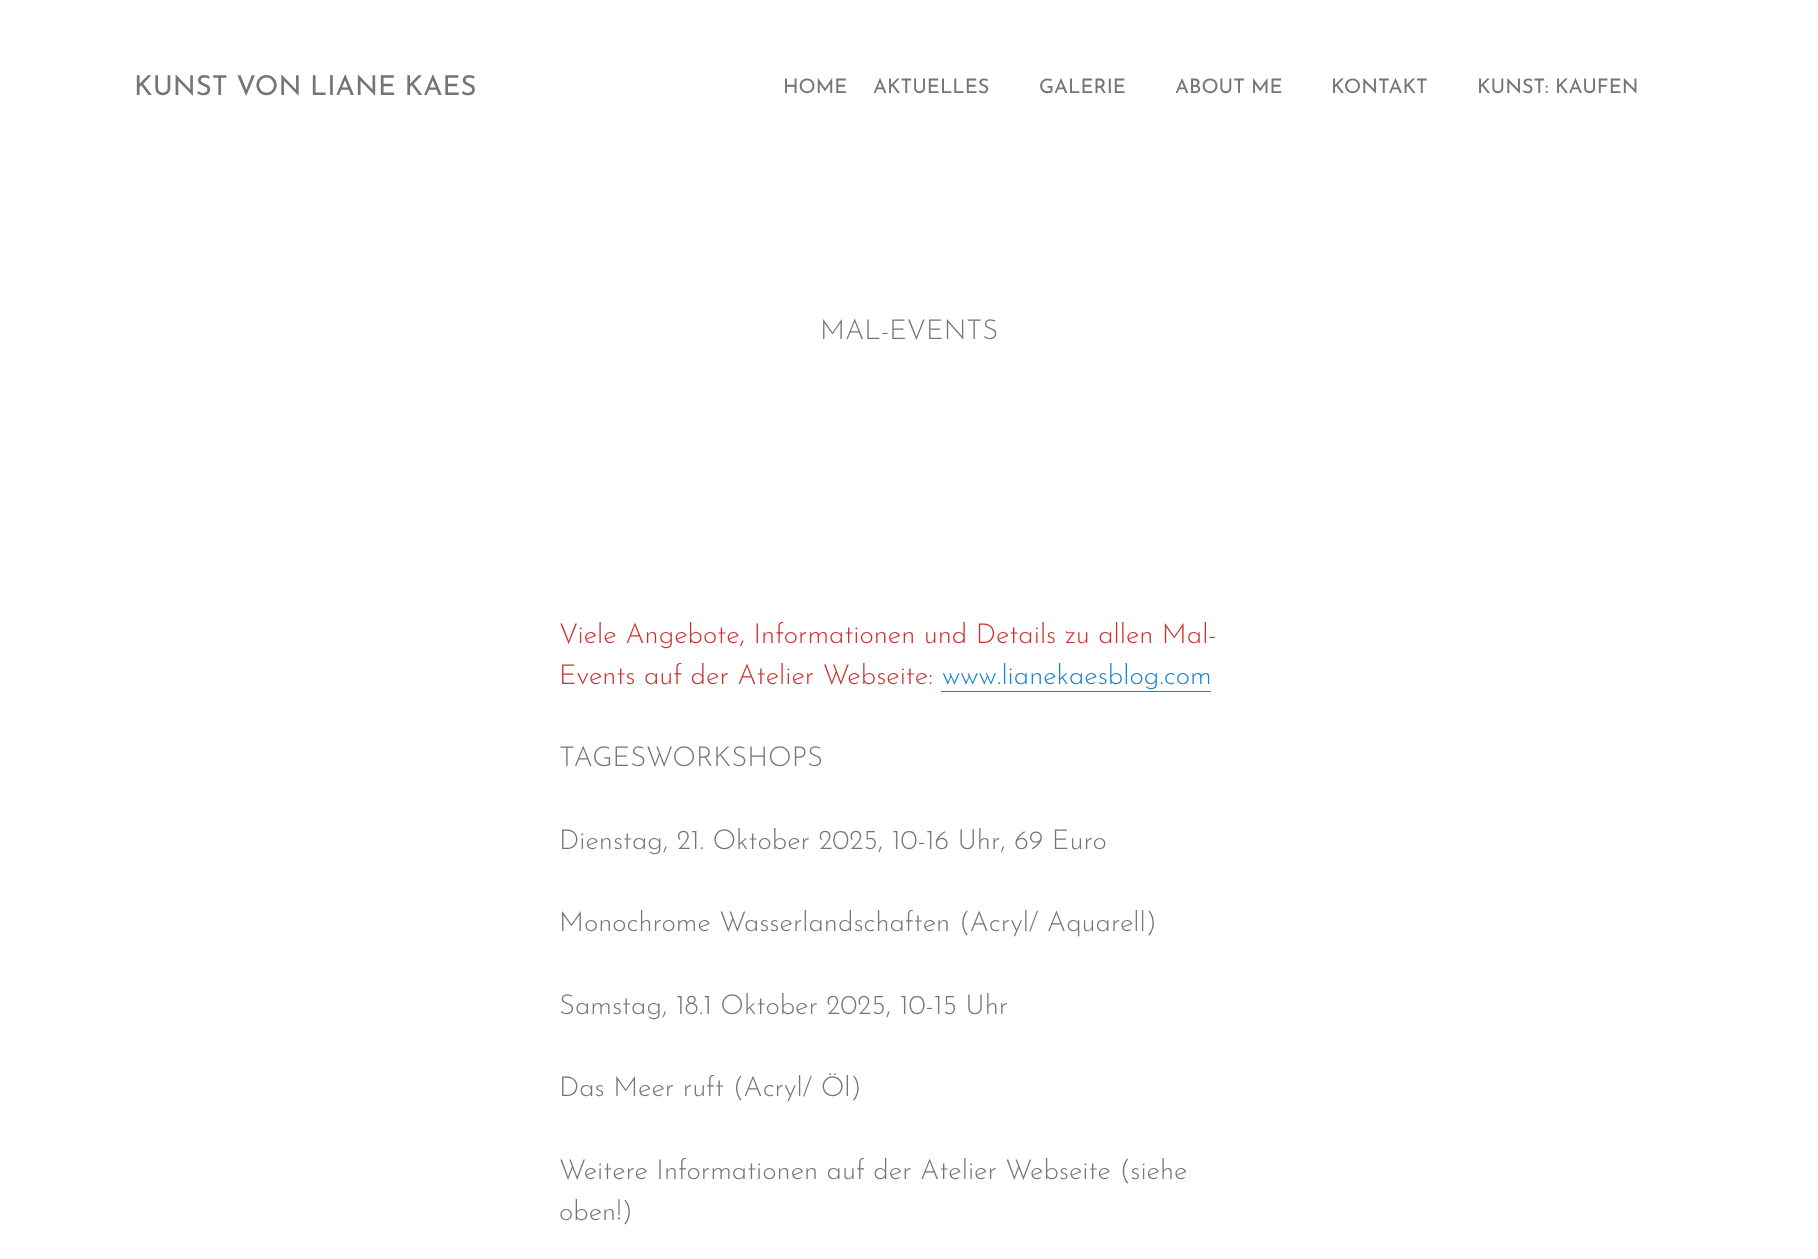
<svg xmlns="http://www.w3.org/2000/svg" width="1818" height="1259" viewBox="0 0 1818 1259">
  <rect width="100%" height="100%" fill="#ffffff"/>
  <text x="134" y="95" font-family="Josefin Sans" font-size="27.5" fill="#757575">KUNST VON LIANE KAES</text>
  <text x="783" y="93" font-family="Josefin Sans" font-size="20" fill="#757575">HOME</text>
  <text x="873" y="93" font-family="Josefin Sans" font-size="20" fill="#757575">AKTUELLES</text>
  <text x="1039" y="93" font-family="Josefin Sans" font-size="20" fill="#757575">GALERIE</text>
  <text x="1175" y="93" font-family="Josefin Sans" font-size="20" fill="#757575">ABOUT ME</text>
  <text x="1331" y="93" font-family="Josefin Sans" font-size="20" fill="#757575">KONTAKT</text>
  <text x="1477" y="93" font-family="Josefin Sans" font-size="20" fill="#757575">KUNST: KAUFEN</text>
  <text x="820" y="339" font-family="Josefin Sans" font-size="27.5" font-weight="300" fill="#757575">MAL-EVENTS</text>
  <text x="559" y="643" font-family="Josefin Sans" font-size="27.5" font-weight="300" fill="#cf2e2e">Viele Angebote, Informationen und Details zu allen Mal-</text>
  <text x="559" y="684" font-family="Josefin Sans" font-size="27.5" font-weight="300" fill="#cf2e2e">Events auf der Atelier Webseite:</text>
  <text x="942" y="684" font-family="Josefin Sans" font-size="27.5" font-weight="300" fill="#1782d3">www.lianekaesblog.com</text>
  <rect x="941" y="691" width="270" height="1" fill="#1782d3"/>
  <text x="559" y="766" font-family="Josefin Sans" font-size="27.5" font-weight="300" fill="#757575">TAGESWORKSHOPS</text>
  <text x="559" y="849" font-family="Josefin Sans" font-size="27.5" font-weight="300" fill="#757575">Dienstag, 21. Oktober 2025, 10-16 Uhr, 69 Euro</text>
  <text x="559" y="931" font-family="Josefin Sans" font-size="27.5" font-weight="300" fill="#757575">Monochrome Wasserlandschaften (Acryl/ Aquarell)</text>
  <text x="559" y="1014" font-family="Josefin Sans" font-size="27.5" font-weight="300" fill="#757575">Samstag, 18.1 Oktober 2025, 10-15 Uhr</text>
  <text x="559" y="1096" font-family="Josefin Sans" font-size="27.5" font-weight="300" fill="#757575">Das Meer ruft (Acryl/ Öl)</text>
  <text x="559" y="1179" font-family="Josefin Sans" font-size="27.5" font-weight="300" fill="#757575">Weitere Informationen auf der Atelier Webseite (siehe</text>
  <text x="559" y="1220" font-family="Josefin Sans" font-size="27.5" font-weight="300" fill="#757575">oben!)</text>
</svg>
